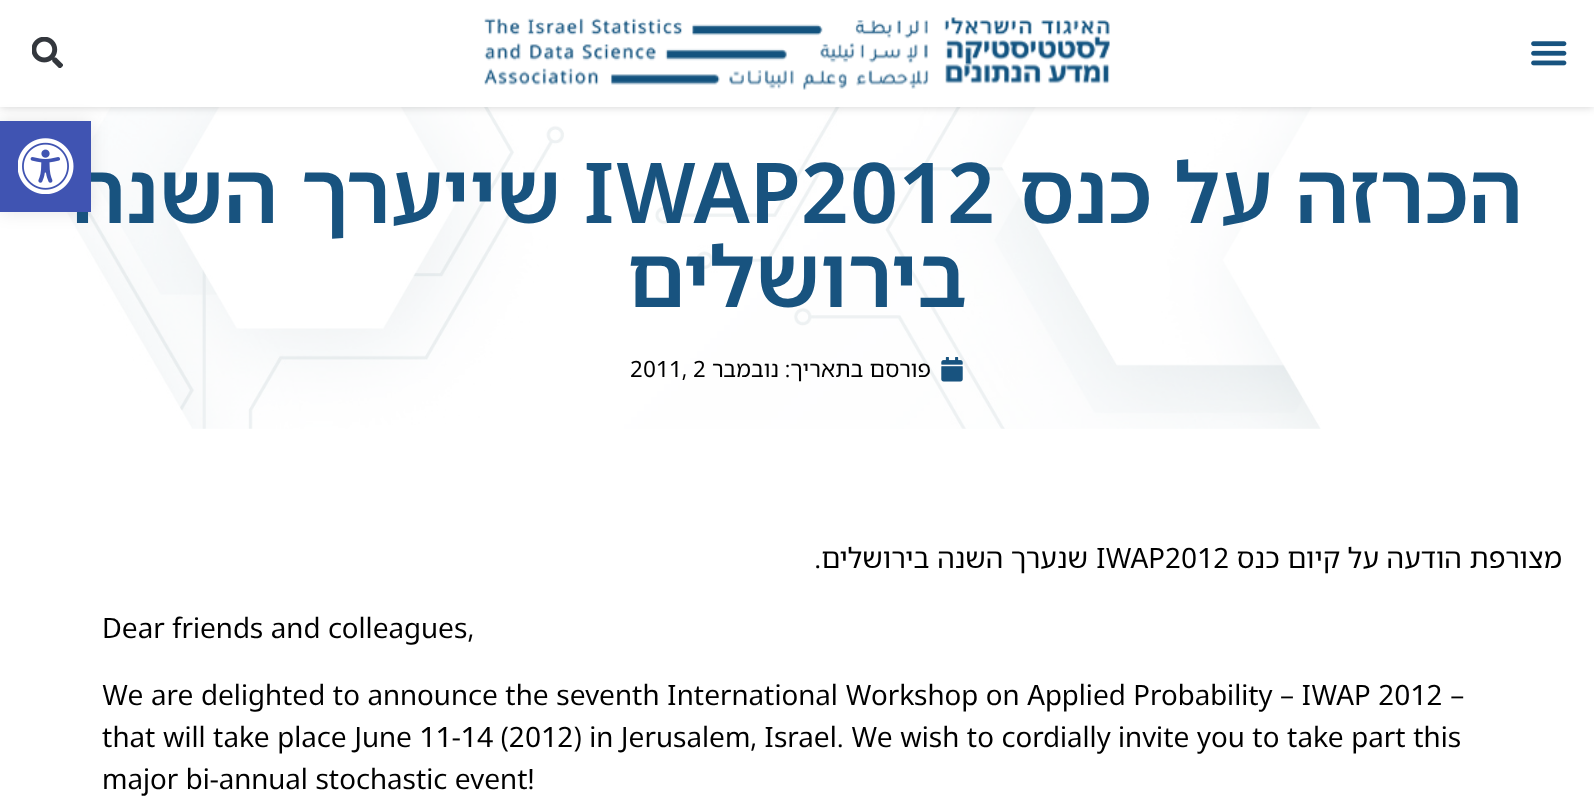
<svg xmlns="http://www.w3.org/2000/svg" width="1594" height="808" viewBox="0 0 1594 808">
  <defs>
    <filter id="blur1" x="-50%" y="-200%" width="200%" height="500%"><feGaussianBlur stdDeviation="4.5"/></filter>
    <filter id="blur2" x="-50%" y="-200%" width="200%" height="500%"><feGaussianBlur stdDeviation="9"/></filter>
  </defs>
  <rect width="100%" height="100%" fill="#ffffff"/>
  <image x="0" y="107" width="1321" height="322" href="img5.png"/>
  <rect x="0" y="0" width="1594" height="107" fill="#000000" fill-opacity="0.18" filter="url(#blur1)"/>
  <rect x="0" y="0" width="1594" height="107" fill="#ffffff"/>
  <image x="32" y="37" width="31" height="31" href="img1.png"/>
  <image x="484" y="17" width="626" height="73" href="img2.png"/>
  <image x="1531" y="41" width="36" height="25" href="img3.png"/>
  <rect x="0" y="121" width="91" height="91" fill="#000000" fill-opacity="0.1" filter="url(#blur2)"/>
  <text x="561" y="223" font-family="Noto Sans Hebrew" font-size="84" font-weight="600" direction="rtl" fill="#18537f">שייערך השנה</text>
  <rect x="0" y="121" width="91" height="91" fill="#4054b2"/>
  <image x="18" y="138" width="56" height="56" href="img4.png"/>
  <text x="583" y="223" font-family="Noto Sans Hebrew" font-size="84" font-weight="600" fill="#18537f">IWAP2012</text>
  <text x="1523" y="223" font-family="Noto Sans Hebrew" font-size="84" font-weight="600" direction="rtl" fill="#18537f">הכרזה על כנס</text>
  <text x="967" y="307" font-family="Noto Sans Hebrew" font-size="84" font-weight="600" direction="rtl" fill="#18537f">בירושלים</text>
  <text x="630" y="377" font-family="Noto Sans Hebrew" font-size="22.5" fill="#000000">2011, 2</text>
  <text x="779" y="377" font-family="Noto Sans Hebrew" font-size="22.5" direction="rtl" fill="#000000">נובמבר</text>
  <text x="931" y="377" font-family="Noto Sans Hebrew" font-size="22.5" direction="rtl" fill="#000000">פורסם בתאריך:</text>
  <image x="941" y="357" width="22" height="25" href="img6.png"/>
  <text x="1088" y="568" font-family="Noto Sans Hebrew" font-size="28" direction="rtl" fill="#000000">שנערך השנה בירושלים.</text>
  <text x="1096" y="568" font-family="Noto Sans Hebrew" font-size="28" fill="#000000">IWAP2012</text>
  <text x="1562" y="568" font-family="Noto Sans Hebrew" font-size="28" direction="rtl" fill="#000000">מצורפת הודעה על קיום כנס</text>
  <text x="102" y="638" font-family="Noto Sans Hebrew" font-size="28" fill="#000000">Dear friends and colleagues,</text>
  <text x="102" y="705" font-family="Noto Sans Hebrew" font-size="28" fill="#000000">We are delighted to announce the seventh International Workshop on Applied Probability – IWAP 2012 –</text>
  <text x="102" y="747" font-family="Noto Sans Hebrew" font-size="28" fill="#000000">that will take place June 11-14 (2012) in Jerusalem, Israel. We wish to cordially invite you to take part this</text>
  <text x="102" y="789" font-family="Noto Sans Hebrew" font-size="28" fill="#000000">major bi-annual stochastic event!</text>
</svg>
